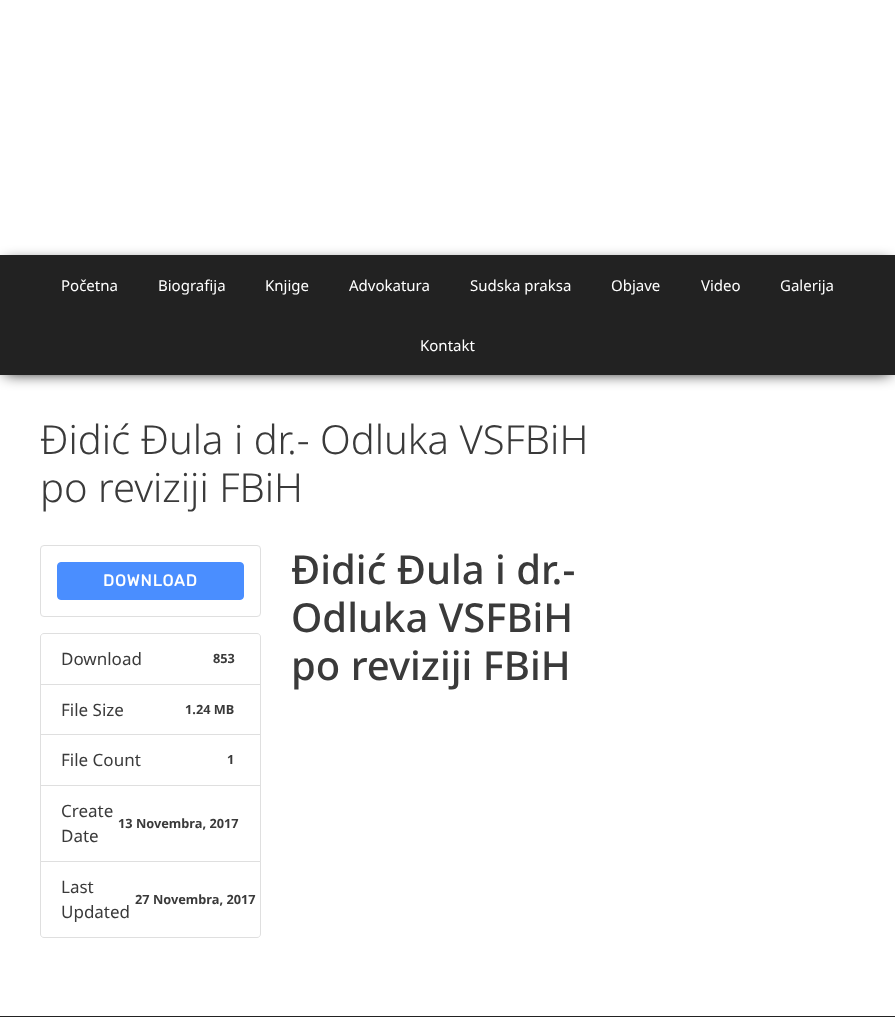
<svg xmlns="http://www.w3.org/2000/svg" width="895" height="1017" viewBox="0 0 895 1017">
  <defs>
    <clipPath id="clip1"><path d="M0 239H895V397H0ZM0 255H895V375H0Z" clip-rule="evenodd"/></clipPath>
    <filter id="blur1" x="-50%" y="-200%" width="200%" height="500%"><feGaussianBlur stdDeviation="7.5"/></filter>
  </defs>
  <rect width="100%" height="100%" fill="#222222"/>
  <rect x="0" y="0" width="895" height="255" fill="#ffffff"/>
  <rect x="0" y="375" width="895" height="641" fill="#ffffff"/>
  <g clip-path="url(#clip1)">
    <rect x="5" y="263" width="885" height="110" fill="#000000" filter="url(#blur1)"/>
  </g>
  <text x="61" y="291" font-family="Noto Sans" font-size="15" fill="#ffffff">Početna</text>
  <text x="158" y="291" font-family="Noto Sans" font-size="15" fill="#ffffff">Biografija</text>
  <text x="265" y="291" font-family="Noto Sans" font-size="15" fill="#ffffff">Knjige</text>
  <text x="349" y="291" font-family="Noto Sans" font-size="15" fill="#ffffff">Advokatura</text>
  <text x="470" y="291" font-family="Noto Sans" font-size="15" fill="#ffffff">Sudska praksa</text>
  <text x="611" y="291" font-family="Noto Sans" font-size="15" fill="#ffffff">Objave</text>
  <text x="701" y="291" font-family="Noto Sans" font-size="15" fill="#ffffff">Video</text>
  <text x="780" y="291" font-family="Noto Sans" font-size="15" fill="#ffffff">Galerija</text>
  <text x="420" y="351" font-family="Noto Sans" font-size="15" fill="#ffffff">Kontakt</text>
  <text x="40" y="454" font-family="Noto Sans" font-size="40" font-weight="300" fill="#3a3a3a">Đidić Đula i dr.- Odluka VSFBiH</text>
  <text x="40" y="502" font-family="Noto Sans" font-size="40" font-weight="300" fill="#3a3a3a">po reviziji FBiH</text>
  <rect x="40.5" y="545.5" width="220" height="71" rx="3.5" fill="none" stroke="#dfdfdf"/>
  <rect x="57.5" y="562.5" width="186" height="37" rx="3.5" fill="#4a8eff" stroke="#4a8eff"/>
  <text x="103" y="586" font-family="Rubik" font-size="16" font-weight="bold" letter-spacing="1" fill="#ffffff">DOWNLOAD</text>
  <path d="M44 633.5H257C259 633.5 260.5 635 260.5 637V684.5H40.5V637C40.5 635 42 633.5 44 633.5Z" fill="none" stroke="#dfdfdf"/>
  <text x="61" y="665" font-family="Noto Sans" font-size="17" fill="#3a3a3a">Download</text>
  <text x="213" y="663" font-family="Noto Sans" font-size="12.75" font-weight="bold" fill="#3a3a3a">853</text>
  <rect x="40.5" y="684.5" width="220" height="50" fill="none" stroke="#dfdfdf"/>
  <text x="61" y="716" font-family="Noto Sans" font-size="17" fill="#3a3a3a">File Size</text>
  <text x="185" y="714" font-family="Noto Sans" font-size="12.75" font-weight="bold" fill="#3a3a3a">1.24 MB</text>
  <rect x="40.5" y="734.5" width="220" height="51" fill="none" stroke="#dfdfdf"/>
  <text x="61" y="766" font-family="Noto Sans" font-size="17" fill="#3a3a3a">File Count</text>
  <text x="227" y="764" font-family="Noto Sans" font-size="12.75" font-weight="bold" fill="#3a3a3a">1</text>
  <rect x="40.5" y="785.5" width="220" height="76" fill="none" stroke="#dfdfdf"/>
  <text x="61" y="817" font-family="Noto Sans" font-size="17" fill="#3a3a3a">Create</text>
  <text x="118" y="828" font-family="Noto Sans" font-size="12.75" font-weight="bold" fill="#3a3a3a">13 Novembra, 2017</text>
  <text x="61" y="842" font-family="Noto Sans" font-size="17" fill="#3a3a3a">Date</text>
  <path d="M40.5 861.5H260.5V934C260.5 936 259 937.5 257 937.5H44C42 937.5 40.5 936 40.5 934Z" fill="#ffffff" stroke="#dfdfdf"/>
  <text x="61" y="893" font-family="Noto Sans" font-size="17" fill="#3a3a3a">Last</text>
  <text x="135" y="904" font-family="Noto Sans" font-size="12.75" font-weight="bold" fill="#3a3a3a">27 Novembra, 2017</text>
  <text x="61" y="918" font-family="Noto Sans" font-size="17" fill="#3a3a3a">Updated</text>
  <text x="291" y="584" font-family="Noto Sans" font-size="40" font-weight="500" fill="#3a3a3a">Đidić Đula i dr.-</text>
  <text x="291" y="632" font-family="Noto Sans" font-size="40" font-weight="500" fill="#3a3a3a">Odluka VSFBiH</text>
  <text x="291" y="680" font-family="Noto Sans" font-size="40" font-weight="500" fill="#3a3a3a">po reviziji FBiH</text>
</svg>
